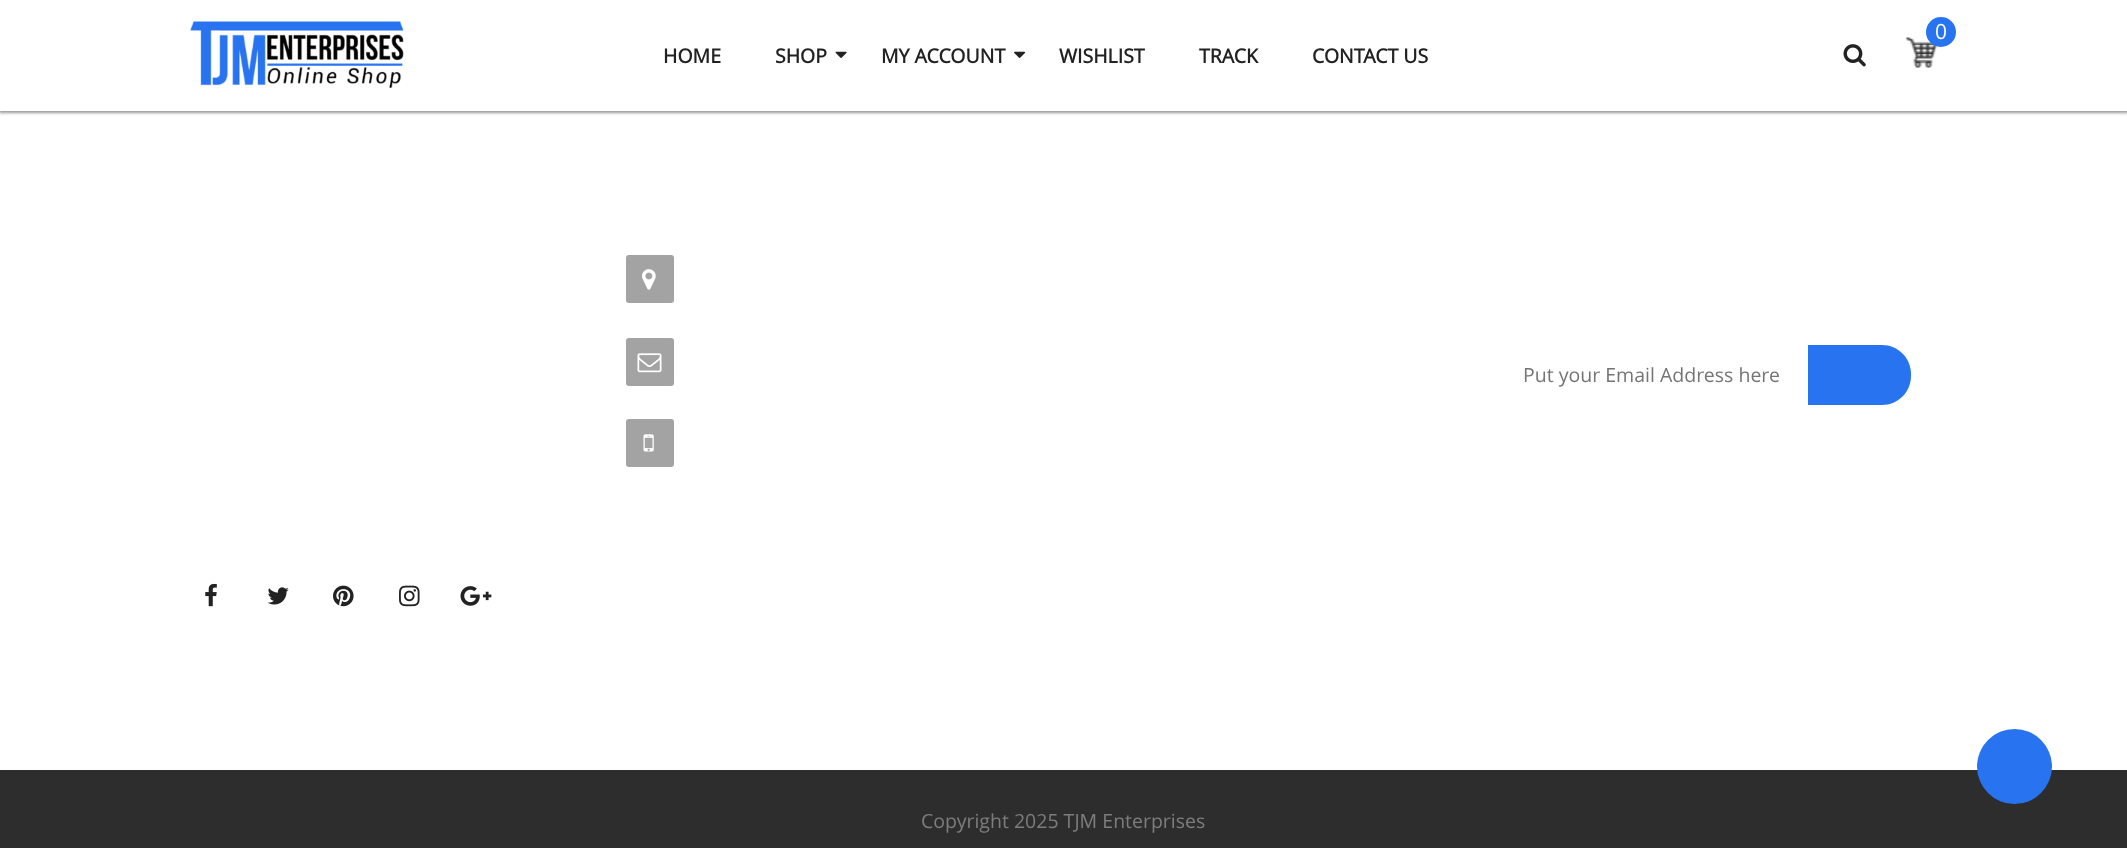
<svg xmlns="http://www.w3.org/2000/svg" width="2127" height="848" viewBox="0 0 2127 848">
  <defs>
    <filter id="blur1" x="-50%" y="-200%" width="200%" height="500%"><feGaussianBlur stdDeviation="1.5"/></filter>
  </defs>
  <rect width="100%" height="100%" fill="#ffffff"/>
  <rect x="-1" y="-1" width="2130" height="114" fill="#999999" filter="url(#blur1)"/>
  <rect x="0" y="0" width="2127" height="111" fill="#ffffff"/>
  <image x="190" y="21" width="214" height="67" href="img1.png"/>
  <image x="1905" y="37" width="33" height="31" href="img2.png"/>
  <circle cx="1941" cy="32" r="15" fill="#2874f0"/>
  <text x="1935" y="39" font-family="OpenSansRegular" font-size="21" fill="#ffffff">0</text>
  <text x="663" y="63" font-family="OpenSansRegular" font-size="19.5" font-weight="bold" fill="#222222">HOME</text>
  <text x="775" y="63" font-family="OpenSansRegular" font-size="19.5" font-weight="bold" fill="#222222">SHOP</text>
  <image x="835" y="51" width="12" height="7" href="img3.png"/>
  <text x="881" y="63" font-family="OpenSansRegular" font-size="19.5" font-weight="bold" fill="#222222">MY ACCOUNT</text>
  <image x="1014" y="51" width="12" height="7" href="img4.png"/>
  <text x="1059" y="63" font-family="OpenSansRegular" font-size="19.5" font-weight="bold" fill="#222222">WISHLIST</text>
  <text x="1199" y="63" font-family="OpenSansRegular" font-size="19.5" font-weight="bold" fill="#222222">TRACK</text>
  <text x="1312" y="63" font-family="OpenSansRegular" font-size="19.5" font-weight="bold" fill="#222222">CONTACT US</text>
  <image x="1843" y="44" width="23" height="23" href="img5.png"/>
  <rect x="626" y="255" width="48" height="48" rx="3" fill="#a3a3a3"/>
  <image x="642" y="269" width="14" height="21" href="img6.png"/>
  <rect x="626" y="338" width="48" height="48" rx="3" fill="#a3a3a3"/>
  <image x="637" y="353" width="25" height="20" href="img7.png"/>
  <rect x="626" y="419" width="48" height="48" rx="3" fill="#a3a3a3"/>
  <image x="643" y="434" width="11" height="18" href="img8.png"/>
  <text x="1523" y="382" font-family="OpenSansRegular" font-size="19.5" fill="#757575">Put your Email Address here</text>
  <path d="M1808 345H1882C1898 345 1911 358 1911 374V376C1911 392 1898 405 1882 405H1808Z" fill="#2874f0"/>
  <image x="205" y="583" width="12" height="24" href="img9.png"/>
  <image x="267" y="587" width="22" height="18" href="img10.png"/>
  <image x="333" y="585" width="21" height="22" href="img11.png"/>
  <image x="399" y="585" width="21" height="22" href="img12.png"/>
  <image x="460" y="586" width="32" height="20" href="img13.png"/>
  <rect x="0" y="770" width="2127" height="78" fill="#2d2d2d"/>
  <text x="921" y="828" font-family="OpenSansRegular" font-size="19.5" fill="#7d7d7d">Copyright 2025 TJM Enterprises</text>
  <circle cx="2014.5" cy="766.5" r="37.5" fill="#2874f0"/>
</svg>
